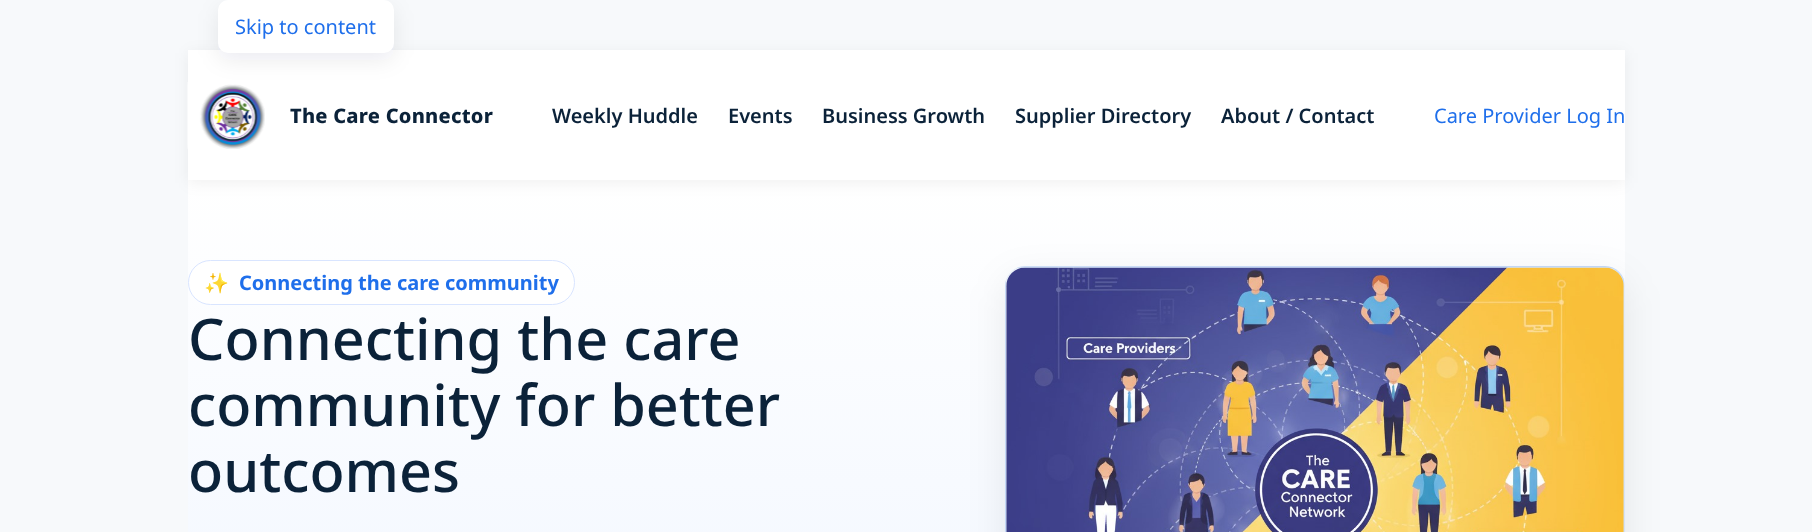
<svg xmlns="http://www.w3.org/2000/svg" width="1812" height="532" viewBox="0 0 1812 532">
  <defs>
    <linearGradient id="g1" gradientUnits="userSpaceOnUse" x1="906" y1="180" x2="906" y2="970"><stop offset="0" stop-color="#ffffff"/><stop offset="1" stop-color="#eaf2ff"/></linearGradient>
    <filter id="blur1" x="-50%" y="-200%" width="200%" height="500%"><feGaussianBlur stdDeviation="7.5"/></filter>
    <filter id="blur2" x="-50%" y="-200%" width="200%" height="500%"><feGaussianBlur stdDeviation="11"/></filter>
    <filter id="blur3" x="-50%" y="-200%" width="200%" height="500%"><feGaussianBlur stdDeviation="19"/></filter>
    <clipPath id="clip1"><rect x="1005" y="266" width="620" height="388" rx="20"/></clipPath>
    <linearGradient id="g2" gradientUnits="userSpaceOnUse" x1="1064" y1="-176" x2="1566" y2="326"><stop offset="0" stop-color="#eaf4ff"/><stop offset="0.6" stop-color="#d7e8ff"/><stop offset="1" stop-color="#cfe2ff"/></linearGradient>
    <linearGradient id="g3" gradientUnits="userSpaceOnUse" x1="447" y1="209" x2="948" y2="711"><stop offset="0" stop-color="#eaf4ff"/><stop offset="0.6" stop-color="#d7e8ff"/><stop offset="1" stop-color="#cfe2ff"/></linearGradient>
    <linearGradient id="g4" gradientUnits="userSpaceOnUse" x1="1064" y1="209" x2="1566" y2="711"><stop offset="0" stop-color="#eaf4ff"/><stop offset="0.6" stop-color="#d7e8ff"/><stop offset="1" stop-color="#cfe2ff"/></linearGradient>
    <linearGradient id="g5" gradientUnits="userSpaceOnUse" x1="1682" y1="209" x2="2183" y2="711"><stop offset="0" stop-color="#eaf4ff"/><stop offset="0.6" stop-color="#d7e8ff"/><stop offset="1" stop-color="#cfe2ff"/></linearGradient>
    <radialGradient id="g6" gradientUnits="userSpaceOnUse" cx="0" cy="0" r="1" gradientTransform="matrix(741 0 0 462 1068 306)"><stop offset="0" stop-color="#ffffff" stop-opacity="0.7"/><stop offset="0.6" stop-color="#ffffff" stop-opacity="0"/></radialGradient>
    <radialGradient id="g7" gradientUnits="userSpaceOnUse" cx="0" cy="0" r="1" gradientTransform="matrix(741 0 0 462 1686 306)"><stop offset="0" stop-color="#ffffff" stop-opacity="0.7"/><stop offset="0.6" stop-color="#ffffff" stop-opacity="0"/></radialGradient>
  </defs>
  <rect width="100%" height="100%" fill="#f7f9fb"/>
  <rect x="188" y="180" width="1437" height="352" fill="url(#g1)"/>
  <rect x="188" y="53" width="1437" height="130" fill="#0b2239" fill-opacity="0.06" filter="url(#blur1)"/>
  <rect x="188" y="50" width="1437" height="130" fill="#ffffff"/>
  <image x="187" y="82" width="78" height="67" href="img1.png"/>
  <rect x="218" y="8" width="176" height="52" rx="10" fill="#0b2239" fill-opacity="0.08" filter="url(#blur2)"/>
  <rect x="218" y="0" width="176" height="53" rx="10" fill="#ffffff"/>
  <text x="235" y="34" font-family="Noto Sans" font-size="20" fill="#1f6feb">Skip to content</text>
  <text x="290" y="123" font-family="Noto Sans" font-size="20" font-weight="800" letter-spacing="0.25" fill="#0b2239">The Care Connector</text>
  <text x="552" y="123" font-family="Noto Sans" font-size="20" font-weight="600" fill="#0b2239">Weekly Huddle</text>
  <text x="728" y="123" font-family="Noto Sans" font-size="20" font-weight="600" fill="#0b2239">Events</text>
  <text x="822" y="123" font-family="Noto Sans" font-size="20" font-weight="600" fill="#0b2239">Business Growth</text>
  <text x="1015" y="123" font-family="Noto Sans" font-size="20" font-weight="600" fill="#0b2239">Supplier Directory</text>
  <text x="1221" y="123" font-family="Noto Sans" font-size="20" font-weight="600" fill="#0b2239">About / Contact</text>
  <text x="1434" y="123" font-family="Noto Sans" font-size="20" fill="#1f6feb">Care Provider Log In</text>
  <rect x="188.5" y="260.5" width="386" height="44" rx="22" fill="#ffffff" stroke="#d9e5ff"/>
  <text x="204" y="290" font-family="Noto Color Emoji" font-size="20" font-weight="bold" fill="#1f6feb">✨</text>
  <text x="239" y="290" font-family="Noto Sans" font-size="20" font-weight="bold" fill="#1f6feb">Connecting the care community</text>
  <text x="188" y="360" font-family="Noto Sans" font-size="57.5" font-weight="500" fill="#0b2239">Connecting the care</text>
  <text x="188" y="426" font-family="Noto Sans" font-size="57.5" font-weight="500" fill="#0b2239">community for better</text>
  <text x="188" y="492" font-family="Noto Sans" font-size="57.5" font-weight="500" fill="#0b2239">outcomes</text>
  <rect x="1005" y="279" width="620" height="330" rx="20" fill="#000000" fill-opacity="0.08" filter="url(#blur3)"/>
  <g clip-path="url(#clip1)">
    <rect x="1016" y="266" width="598" height="2" fill="url(#g2)"/>
    <rect x="1005" y="280" width="1" height="252" fill="url(#g3)"/>
    <rect x="1006" y="268" width="618" height="264" fill="url(#g4)"/>
    <rect x="1624" y="280" width="1" height="252" fill="url(#g5)"/>
    <rect x="1006" y="268" width="15" height="264" fill="url(#g6)"/>
    <rect x="1624" y="280" width="1" height="252" fill="url(#g7)"/>
  </g>
  <rect x="1005.5" y="266.5" width="619" height="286" rx="19.5" fill="none" stroke="#1e468c" stroke-opacity="0.08"/>
  <image x="1006" y="267" width="618" height="265" href="img2.png"/>
</svg>
